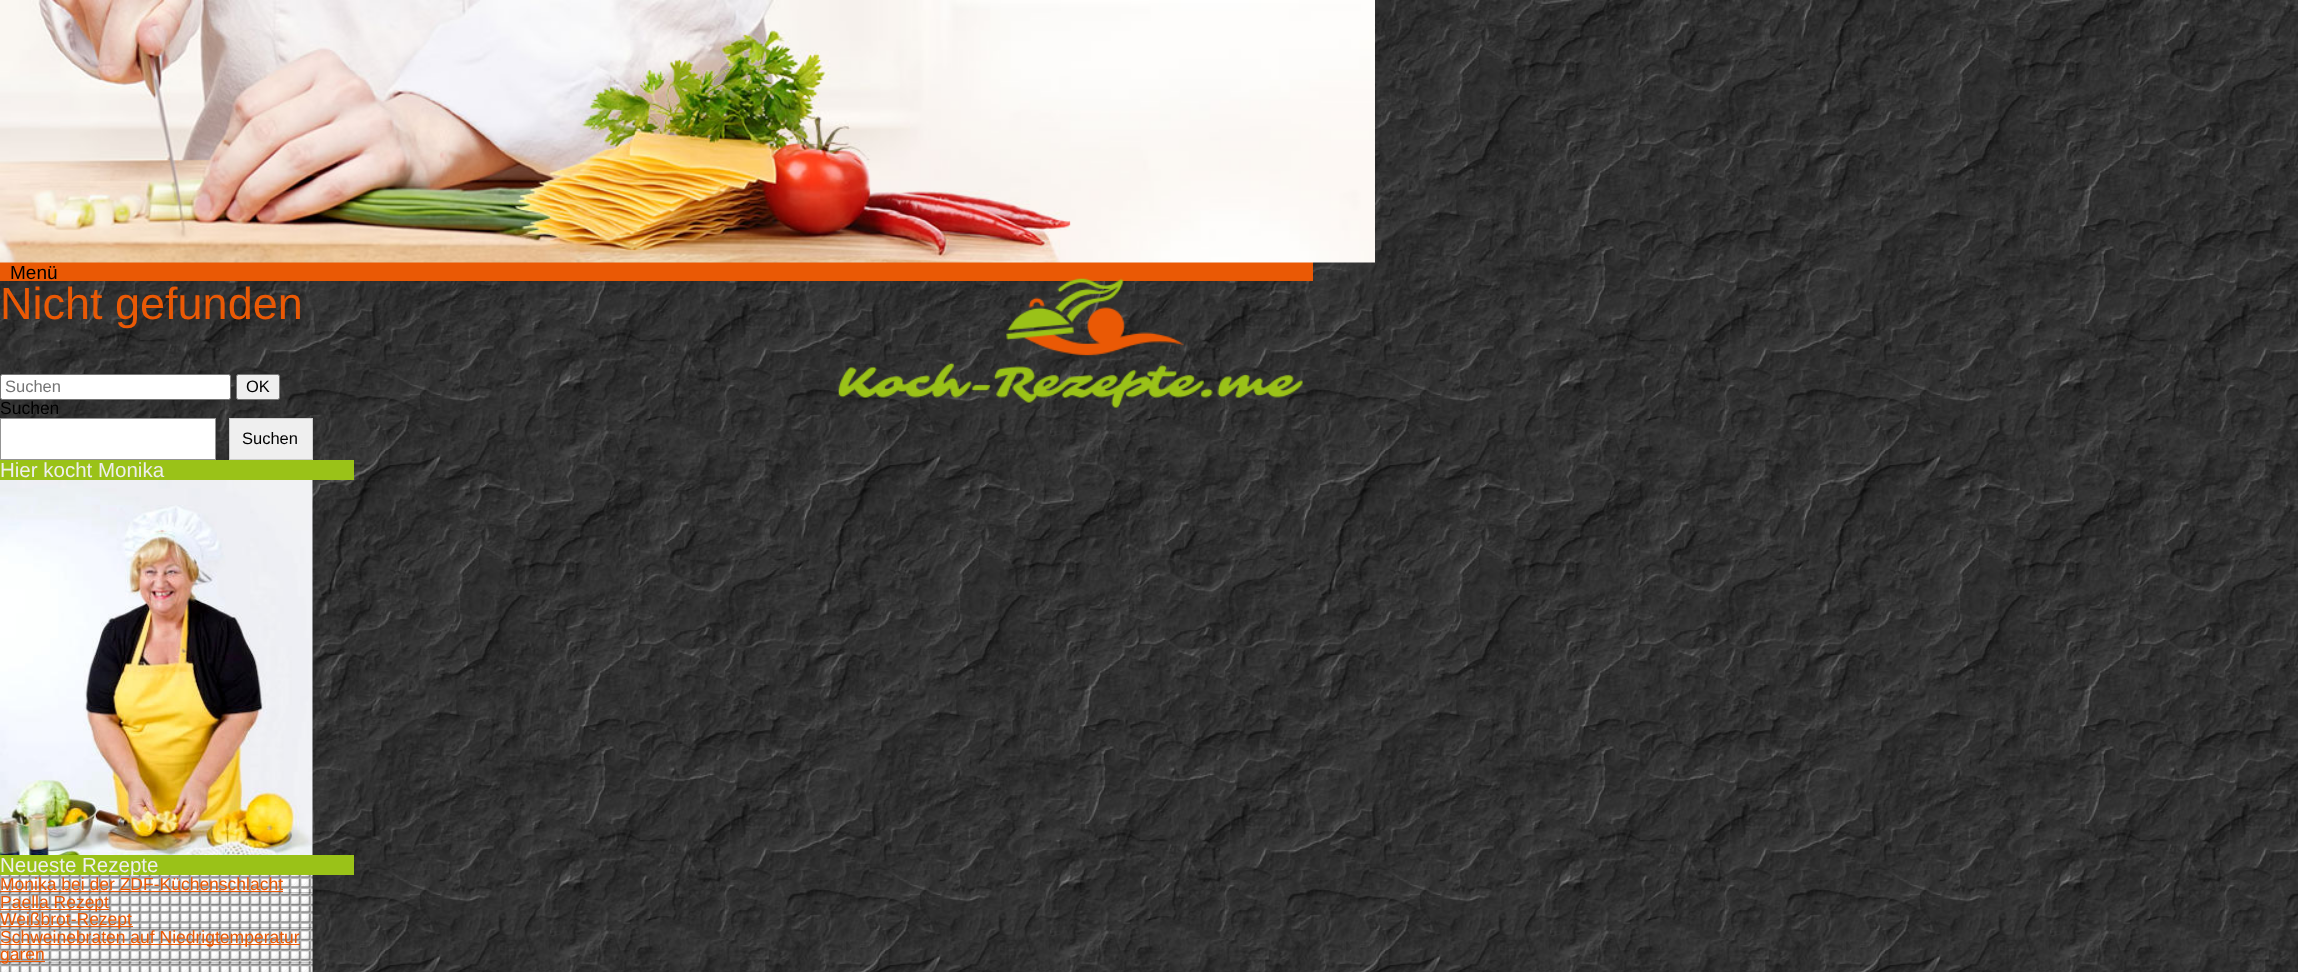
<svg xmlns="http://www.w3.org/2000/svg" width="2298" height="972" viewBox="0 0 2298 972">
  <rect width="100%" height="100%" fill="#ffffff"/>
  <image x="0" y="0" width="2298" height="972" href="img1.png"/>
  <rect x="0" y="262" width="1313" height="19" fill="#ea5905"/>
  <image x="0" y="0" width="1375" height="263" href="img2.png"/>
  <image x="838" y="278" width="465" height="130" href="img3.png"/>
  <text x="10" y="279" font-family="Liberation Sans" font-size="19" fill="#000000">Menü</text>
  <text x="0" y="319" font-family="Liberation Sans" font-size="45" fill="#ea5905">Nicht gefunden</text>
  <rect x="0.5" y="374.5" width="230" height="25" rx="2" fill="#ffffff" stroke="#767676"/>
  <text x="5" y="392" font-family="Liberation Sans" font-size="16.5" fill="#757575">Suchen</text>
  <rect x="236.5" y="374.5" width="43" height="25" rx="2" fill="#efefef" stroke="#767676"/>
  <text x="246" y="392" font-family="Liberation Sans" font-size="16.5" fill="#000000">OK</text>
  <text x="0" y="414" font-family="Liberation Sans" font-size="17.5" fill="#000000">Suchen</text>
  <rect x="0.5" y="418.5" width="215" height="41" fill="#ffffff" stroke="#949494"/>
  <rect x="229.5" y="418.5" width="83" height="41" fill="#efefef" stroke="#cccccc"/>
  <text x="242" y="444" font-family="Liberation Sans" font-size="16.5" fill="#000000">Suchen</text>
  <rect x="0" y="460" width="354" height="20" fill="#9ac218"/>
  <text x="0" y="477" font-family="Liberation Sans" font-size="20.5" fill="#eeeeee">Hier kocht Monika</text>
  <image x="0" y="480" width="313" height="375" href="img4.png"/>
  <rect x="0" y="855" width="354" height="20" fill="#9ac218"/>
  <image x="0" y="875" width="313" height="18" href="img5.png"/>
  <text x="0" y="872" font-family="Liberation Sans" font-size="20.5" fill="#eeeeee">Neueste Rezepte</text>
  <text x="0" y="890" font-family="Liberation Sans" font-size="17.5" fill="#ea5905">Monika bei der ZDF-Küchenschlacht</text>
  <rect x="0" y="891" width="283" height="1" fill="#ea5905"/>
  <image x="0" y="892" width="313" height="18" href="img6.png"/>
  <rect x="0" y="909" width="109" height="1" fill="#ea5905"/>
  <image x="0" y="910" width="313" height="18" href="img7.png"/>
  <text x="0" y="908" font-family="Liberation Sans" font-size="17.5" fill="#ea5905">Paella Rezept</text>
  <rect x="0" y="926" width="133" height="1" fill="#ea5905"/>
  <image x="0" y="927" width="313" height="36" href="img8.png"/>
  <text x="0" y="925" font-family="Liberation Sans" font-size="17.5" fill="#ea5905">Weißbrot-Rezept</text>
  <rect x="0" y="944" width="300" height="1" fill="#ea5905"/>
  <text x="0" y="943" font-family="Liberation Sans" font-size="17.5" fill="#ea5905">Schweinebraten auf Niedrigtemperatur</text>
  <rect x="0" y="961" width="45" height="1" fill="#ea5905"/>
  <image x="0" y="962" width="313" height="10" href="img9.png"/>
  <text x="0" y="960" font-family="Liberation Sans" font-size="17.5" fill="#ea5905">garen</text>
</svg>
